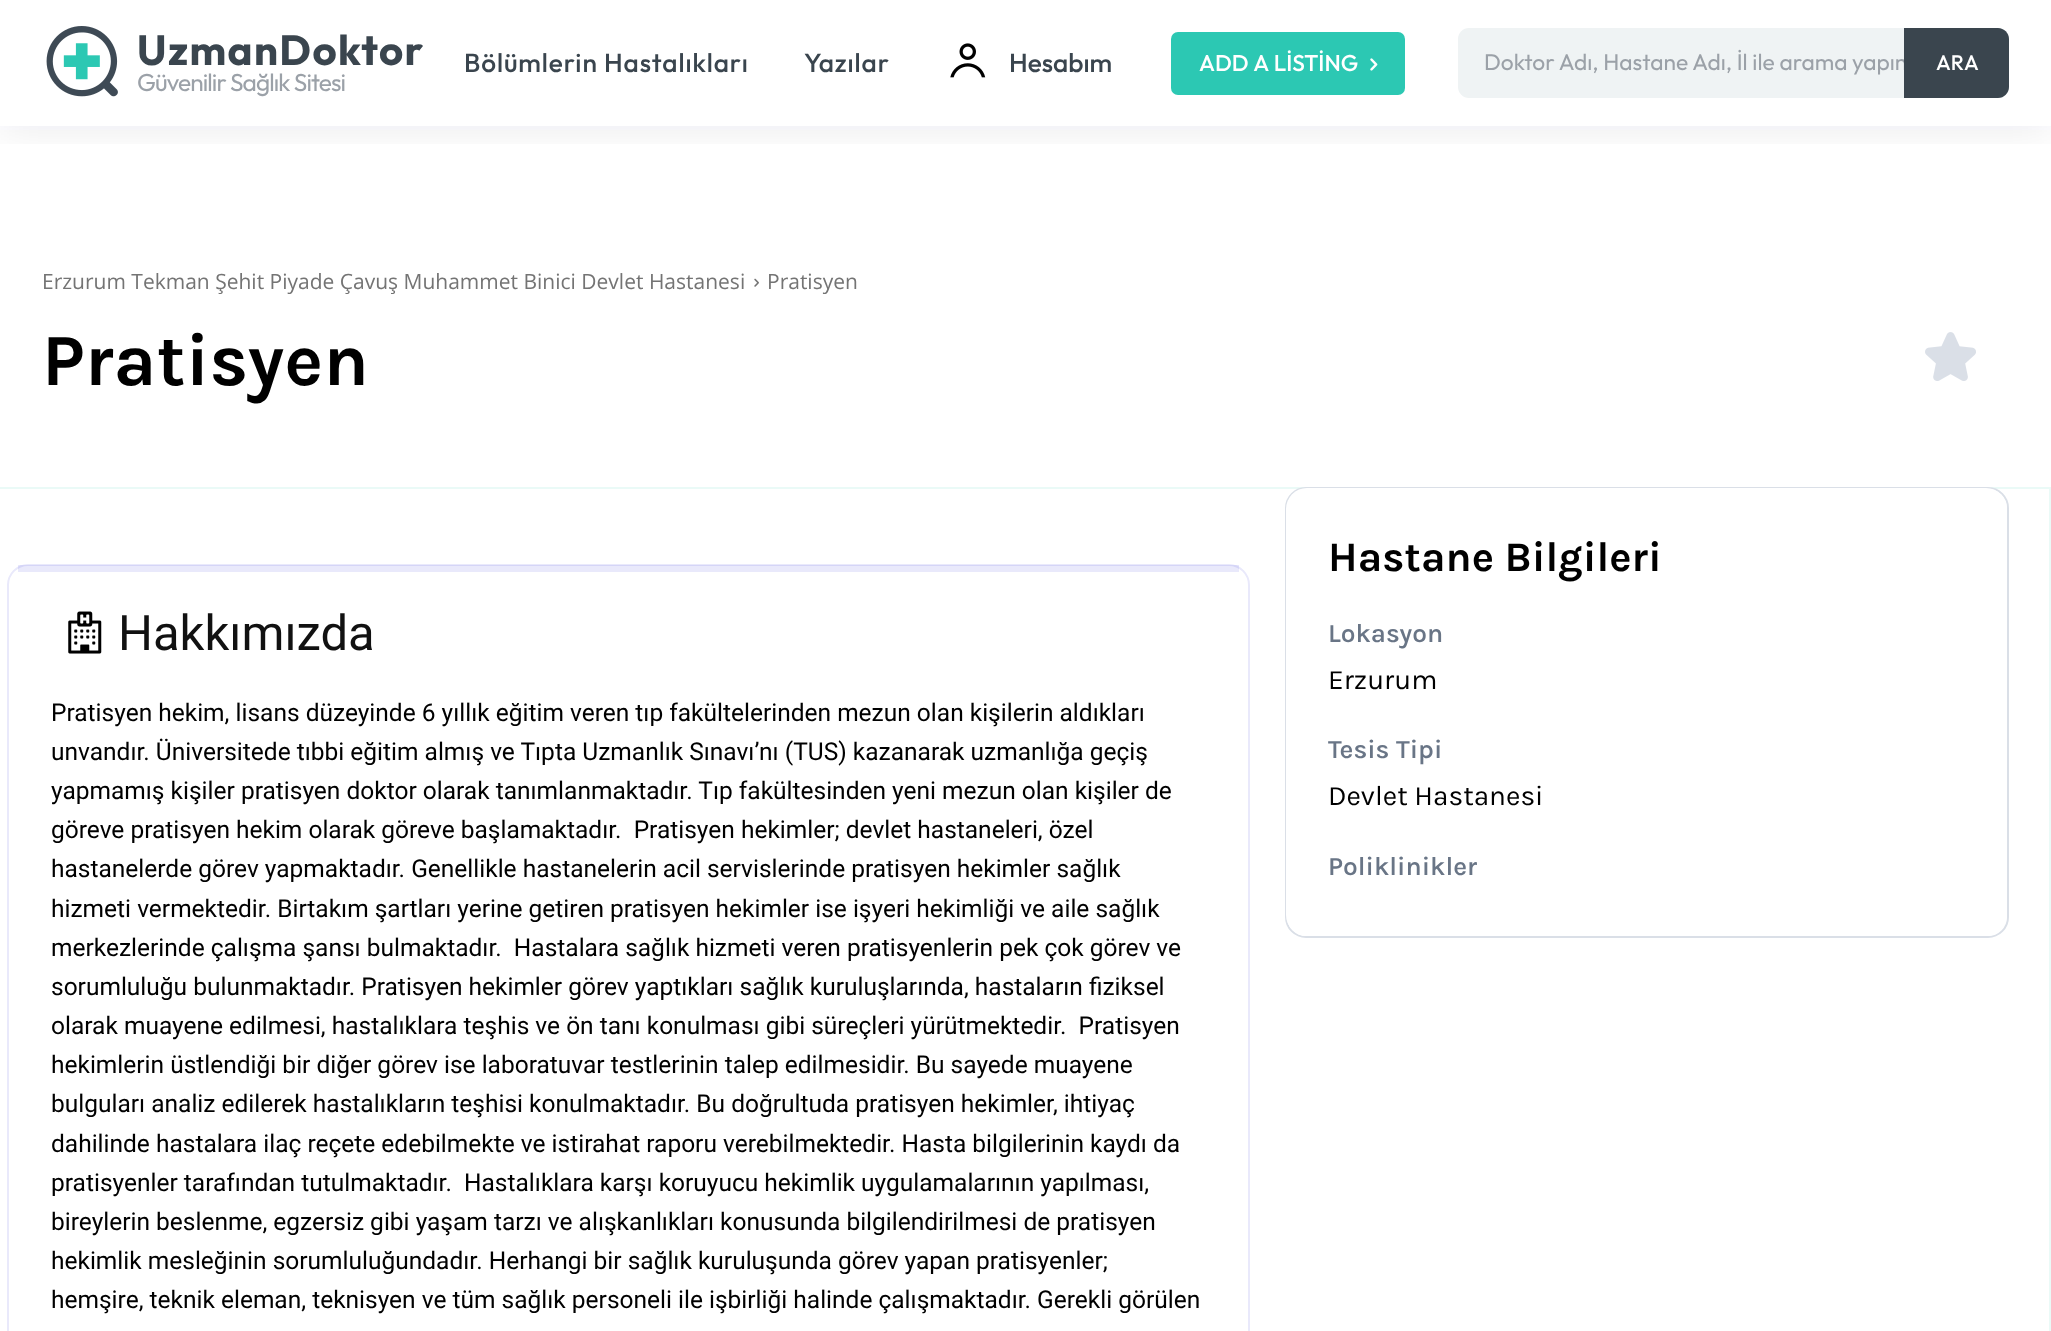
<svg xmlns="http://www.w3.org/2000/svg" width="2051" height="1331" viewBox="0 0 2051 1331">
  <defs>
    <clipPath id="clip1"><rect x="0" y="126" width="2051" height="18"/></clipPath>
    <filter id="blur1" x="-50%" y="-200%" width="200%" height="500%"><feGaussianBlur stdDeviation="21"/></filter>
  </defs>
  <rect width="100%" height="100%" fill="#ffffff"/>
  <image x="46" y="26" width="72" height="71" href="img1.png"/>
  <rect x="1171" y="32" width="234" height="63" rx="7" fill="#2cc8b3"/>
  <image x="1370" y="58" width="8" height="13" href="img3.png"/>
  <rect x="1458" y="28" width="551" height="70" rx="11" fill="#eff3f4"/>
  <text x="1484" y="70" font-family="Outfit" font-size="22.75" fill="#9ba1a8">Doktor Adı, Hastane Adı, İl ile arama yapın</text>
  <path d="M1904 28H1998C2004 28 2009 33 2009 39V87C2009 93 2004 98 1998 98H1904Z" fill="#3a454e"/>
  <g clip-path="url(#clip1)">
    <rect x="0" y="4" width="2051" height="126" fill="#020247" fill-opacity="0.08" filter="url(#blur1)"/>
  </g>
  <text x="137" y="65" font-family="Outfit" font-size="42" font-weight="bold" letter-spacing="1.4" fill="#3a454e">UzmanDoktor</text>
  <text x="137" y="91" font-family="Outfit" font-size="24.5" letter-spacing="-0.9" fill="#9ba1a8">Güvenilir Sağlık Sitesi</text>
  <text x="464" y="72" font-family="Outfit" font-size="26.25" font-weight="500" letter-spacing="0.9" fill="#3a454e">Bölümlerin Hastalıkları</text>
  <text x="804" y="72" font-family="Outfit" font-size="26.25" font-weight="500" letter-spacing="0.9" fill="#3a454e">Yazılar</text>
  <image x="950" y="43" width="36" height="35" href="img2.png"/>
  <text x="1009" y="72" font-family="Outfit" font-size="26.25" font-weight="500" fill="#3a454e">Hesabım</text>
  <text x="1199" y="71" font-family="Outfit" font-size="22.75" font-weight="500" fill="#ffffff">ADD A LİSTİNG</text>
  <text x="1936" y="70" font-family="Outfit" font-size="21" font-weight="500" fill="#ffffff">ARA</text>
  <text x="42" y="289" font-family="Open Sans" font-size="21" fill="#747474">Erzurum Tekman Şehit Piyade Çavuş Muhammet Binici Devlet Hastanesi</text>
  <image x="754" y="278" width="5" height="9" href="img4.png"/>
  <text x="767" y="289" font-family="Open Sans" font-size="21" fill="#747474">Pratisyen</text>
  <text x="42" y="385" font-family="Karla" font-size="73.5" font-weight="bold" fill="#000000">Pratisyen</text>
  <image x="1925" y="332" width="51" height="49" href="img5.png"/>
  <rect x="0" y="487" width="2051" height="2" fill="#eafaf7"/>
  <rect x="2049" y="487" width="2" height="844" fill="#eafaf7"/>
  <rect x="8" y="565" width="1241" height="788" rx="20" fill="none" stroke="#e9e9fb" stroke-width="2"/>
  <rect x="18" y="565" width="1221" height="7" fill="#2623d3" fill-opacity="0.1"/>
  <image x="68" y="611" width="34" height="43" href="img6.png"/>
  <text x="118" y="650" font-family="Roboto" font-size="49" fill="#111111">Hakkımızda</text>
  <text x="51" y="721" font-family="Roboto" font-size="24.5" fill="#000000">Pratisyen hekim, lisans düzeyinde 6 yıllık eğitim veren tıp fakültelerinden mezun olan kişilerin aldıkları</text>
  <text x="51" y="760" font-family="Roboto" font-size="24.5" fill="#000000">unvandır. Üniversitede tıbbi eğitim almış ve Tıpta Uzmanlık Sınavı’nı (TUS) kazanarak uzmanlığa geçiş</text>
  <text x="51" y="799" font-family="Roboto" font-size="24.5" fill="#000000">yapmamış kişiler pratisyen doktor olarak tanımlanmaktadır. Tıp fakültesinden yeni mezun olan kişiler de</text>
  <text x="51" y="838" font-family="Roboto" font-size="24.5" fill="#000000" xml:space="preserve">göreve pratisyen hekim olarak göreve başlamaktadır.  Pratisyen hekimler; devlet hastaneleri, özel</text>
  <text x="51" y="877" font-family="Roboto" font-size="24.5" fill="#000000">hastanelerde görev yapmaktadır. Genellikle hastanelerin acil servislerinde pratisyen hekimler sağlık</text>
  <text x="51" y="917" font-family="Roboto" font-size="24.5" fill="#000000">hizmeti vermektedir. Birtakım şartları yerine getiren pratisyen hekimler ise işyeri hekimliği ve aile sağlık</text>
  <text x="51" y="956" font-family="Roboto" font-size="24.5" fill="#000000" xml:space="preserve">merkezlerinde çalışma şansı bulmaktadır.  Hastalara sağlık hizmeti veren pratisyenlerin pek çok görev ve</text>
  <text x="51" y="995" font-family="Roboto" font-size="24.5" fill="#000000">sorumluluğu bulunmaktadır. Pratisyen hekimler görev yaptıkları sağlık kuruluşlarında, hastaların fiziksel</text>
  <text x="51" y="1034" font-family="Roboto" font-size="24.5" fill="#000000" xml:space="preserve">olarak muayene edilmesi, hastalıklara teşhis ve ön tanı konulması gibi süreçleri yürütmektedir.  Pratisyen</text>
  <text x="51" y="1073" font-family="Roboto" font-size="24.5" fill="#000000">hekimlerin üstlendiği bir diğer görev ise laboratuvar testlerinin talep edilmesidir. Bu sayede muayene</text>
  <text x="51" y="1112" font-family="Roboto" font-size="24.5" fill="#000000">bulguları analiz edilerek hastalıkların teşhisi konulmaktadır. Bu doğrultuda pratisyen hekimler, ihtiyaç</text>
  <text x="51" y="1152" font-family="Roboto" font-size="24.5" fill="#000000">dahilinde hastalara ilaç reçete edebilmekte ve istirahat raporu verebilmektedir. Hasta bilgilerinin kaydı da</text>
  <text x="51" y="1191" font-family="Roboto" font-size="24.5" fill="#000000" xml:space="preserve">pratisyenler tarafından tutulmaktadır.  Hastalıklara karşı koruyucu hekimlik uygulamalarının yapılması,</text>
  <text x="51" y="1230" font-family="Roboto" font-size="24.5" fill="#000000">bireylerin beslenme, egzersiz gibi yaşam tarzı ve alışkanlıkları konusunda bilgilendirilmesi de pratisyen</text>
  <text x="51" y="1269" font-family="Roboto" font-size="24.5" fill="#000000">hekimlik mesleğinin sorumluluğundadır. Herhangi bir sağlık kuruluşunda görev yapan pratisyenler;</text>
  <text x="51" y="1308" font-family="Roboto" font-size="24.5" fill="#000000">hemşire, teknik eleman, teknisyen ve tüm sağlık personeli ile işbirliği halinde çalışmaktadır. Gerekli görülen</text>
  <rect x="1286" y="488" width="722" height="449" rx="20" fill="none" stroke="#dadfe7" stroke-width="2"/>
  <rect x="1286" y="488" width="721" height="448" rx="21" fill="#ffffff"/>
  <text x="1328" y="571" font-family="Karla" font-size="42" font-weight="bold" fill="#000000">Hastane Bilgileri</text>
  <text x="1328" y="642" font-family="Karla" font-size="26.25" font-weight="600" fill="#697586">Lokasyon</text>
  <text x="1328" y="689" font-family="Karla" font-size="28" fill="#000000">Erzurum</text>
  <text x="1328" y="758" font-family="Karla" font-size="26.25" font-weight="600" fill="#697586">Tesis Tipi</text>
  <text x="1328" y="805" font-family="Karla" font-size="28" fill="#000000">Devlet Hastanesi</text>
  <text x="1328" y="875" font-family="Karla" font-size="26.25" font-weight="600" fill="#697586">Poliklinikler</text>
</svg>
